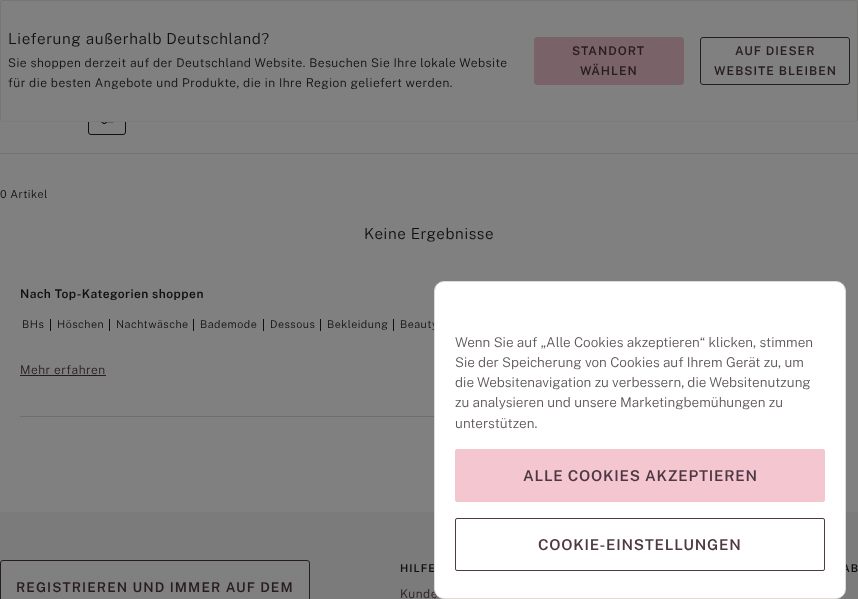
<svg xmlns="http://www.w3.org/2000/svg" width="858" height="599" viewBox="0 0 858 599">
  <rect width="100%" height="100%" fill="#808080"/>
  <rect x="88.5" y="103.5" width="37" height="31" rx="2.5" fill="none" stroke="#110f0f"/>
  <rect x="0" y="0" width="858" height="122" rx="2" fill="#808080"/>
  <path d="M857 121L856 121.5H2L1 121" fill="none" stroke="#7b7b7b"/>
  <path d="M1 121L.5 120V2L1 1L2 .5H856L857 1L857.5 2V120L857 121" fill="none" stroke="#787675"/>
  <text x="8" y="44" font-family="Public Sans" font-size="15.2" font-weight="300" letter-spacing="0.6" fill="#110f0f">Lieferung außerhalb Deutschland?</text>
  <text x="8" y="67" font-family="Public Sans" font-size="12" font-weight="300" letter-spacing="0.48" fill="#110f0f">Sie shoppen derzeit auf der Deutschland Website. Besuchen Sie Ihre lokale Website</text>
  <text x="8" y="87" font-family="Public Sans" font-size="12" font-weight="300" letter-spacing="0.48" fill="#110f0f">für die besten Angebote und Produkte, die in Ihre Region geliefert werden.</text>
  <rect x="534.5" y="37.5" width="149" height="47" rx="2.5" fill="#7a6368" stroke="#7a6368"/>
  <text x="572" y="55" font-family="Public Sans" font-size="12" font-weight="600" letter-spacing="1" fill="#271c22">STANDORT</text>
  <text x="580" y="75" font-family="Public Sans" font-size="12" font-weight="600" letter-spacing="1" fill="#271c22">WÄHLEN</text>
  <rect x="700.5" y="37.5" width="149" height="47" rx="2.5" fill="none" stroke="#271c22"/>
  <text x="735" y="55" font-family="Public Sans" font-size="12" font-weight="600" letter-spacing="1" fill="#271c22">AUF DIESER</text>
  <text x="714" y="75" font-family="Public Sans" font-size="12" font-weight="600" letter-spacing="1" fill="#271c22">WEBSITE BLEIBEN</text>
  <rect x="0" y="153" width="858" height="1" fill="#747270"/>
  <image x="100" y="122" width="14" height="3" href="img1.png"/>
  <text x="0" y="198" font-family="Public Sans" font-size="11" font-weight="300" letter-spacing="0.5" fill="#110f0f">0 Artikel</text>
  <text x="364" y="239" font-family="Public Sans" font-size="15.2" font-weight="300" letter-spacing="0.6" fill="#110f0f">Keine Ergebnisse</text>
  <text x="20" y="298" font-family="Public Sans" font-size="12" font-weight="600" letter-spacing="0.48" fill="#110f0f">Nach Top-Kategorien shoppen</text>
  <text x="22" y="328" font-family="Public Sans" font-size="10.75" font-weight="300" letter-spacing="0.5" fill="#110f0f">BHs</text>
  <rect x="50" y="319" width="1" height="12" fill="#110f0f"/>
  <text x="57" y="328" font-family="Public Sans" font-size="10.75" font-weight="300" letter-spacing="0.5" fill="#110f0f">Höschen</text>
  <rect x="109" y="319" width="1" height="12" fill="#110f0f"/>
  <text x="116" y="328" font-family="Public Sans" font-size="10.75" font-weight="300" letter-spacing="0.5" fill="#110f0f">Nachtwäsche</text>
  <rect x="193" y="319" width="1" height="12" fill="#110f0f"/>
  <text x="200" y="328" font-family="Public Sans" font-size="10.75" font-weight="300" letter-spacing="0.5" fill="#110f0f">Bademode</text>
  <rect x="263" y="319" width="1" height="12" fill="#110f0f"/>
  <text x="270" y="328" font-family="Public Sans" font-size="10.75" font-weight="300" letter-spacing="0.5" fill="#110f0f">Dessous</text>
  <rect x="320" y="319" width="1" height="12" fill="#110f0f"/>
  <text x="327" y="328" font-family="Public Sans" font-size="10.75" font-weight="300" letter-spacing="0.5" fill="#110f0f">Bekleidung</text>
  <rect x="393" y="319" width="1" height="12" fill="#110f0f"/>
  <text x="400" y="328" font-family="Public Sans" font-size="10.75" font-weight="300" letter-spacing="0.5" fill="#110f0f">Beauty</text>
  <text x="20" y="374" font-family="Public Sans" font-size="12" font-weight="300" letter-spacing="0.48" fill="#271c22">Mehr erfahren</text>
  <rect x="20" y="375" width="86" height="1" fill="#271c22"/>
  <rect x="20" y="416" width="414" height="1" fill="#706d6b"/>
  <rect x="0" y="512" width="858" height="87" fill="#7b7b7b"/>
  <rect x="0.5" y="560.5" width="309" height="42" rx="2.5" fill="#808080" stroke="#271c22"/>
  <text x="16" y="592" font-family="Public Sans" font-size="13.5" font-weight="600" letter-spacing="1.1" fill="#271c22">REGISTRIEREN UND IMMER AUF DEM</text>
  <text x="400" y="572" font-family="Public Sans" font-size="10.75" font-weight="600" letter-spacing="1" fill="#110f0f">HILFE</text>
  <text x="400" y="598" font-family="Public Sans" font-size="12" font-weight="300" letter-spacing="0.48" fill="#271c22">Kunde</text>
  <text x="842" y="572" font-family="Public Sans" font-size="10.75" font-weight="600" letter-spacing="1" fill="#110f0f">AB</text>
  <rect x="434.5" y="281.5" width="411" height="317" rx="9.5" fill="#ffffff" stroke="#e0dad5"/>
  <text x="455" y="347" font-family="Public Sans" font-size="13.5" font-weight="300" fill="#605858">Wenn Sie auf „Alle Cookies akzeptieren“ klicken, stimmen</text>
  <text x="455" y="367" font-family="Public Sans" font-size="13.5" font-weight="300" fill="#605858">Sie der Speicherung von Cookies auf Ihrem Gerät zu, um</text>
  <text x="455" y="387" font-family="Public Sans" font-size="13.5" font-weight="300" fill="#605858">die Websitenavigation zu verbessern, die Websitenutzung</text>
  <text x="455" y="407" font-family="Public Sans" font-size="13.5" font-weight="300" fill="#605858">zu analysieren und unsere Marketingbemühungen zu</text>
  <text x="455" y="428" font-family="Public Sans" font-size="13.5" font-weight="300" fill="#605858">unterstützen.</text>
  <rect x="455.5" y="449.5" width="369" height="52" rx="1.5" fill="#f4c6cf" stroke="#f4c6cf"/>
  <text x="523" y="481" font-family="Public Sans" font-size="15" font-weight="600" letter-spacing="0.75" fill="#4e3844">ALLE COOKIES AKZEPTIEREN</text>
  <rect x="455.5" y="518.5" width="369" height="52" rx="1.5" fill="none" stroke="#4e3844"/>
  <text x="538" y="550" font-family="Public Sans" font-size="15" font-weight="600" letter-spacing="0.75" fill="#4e3844">COOKIE-EINSTELLUNGEN</text>
</svg>
